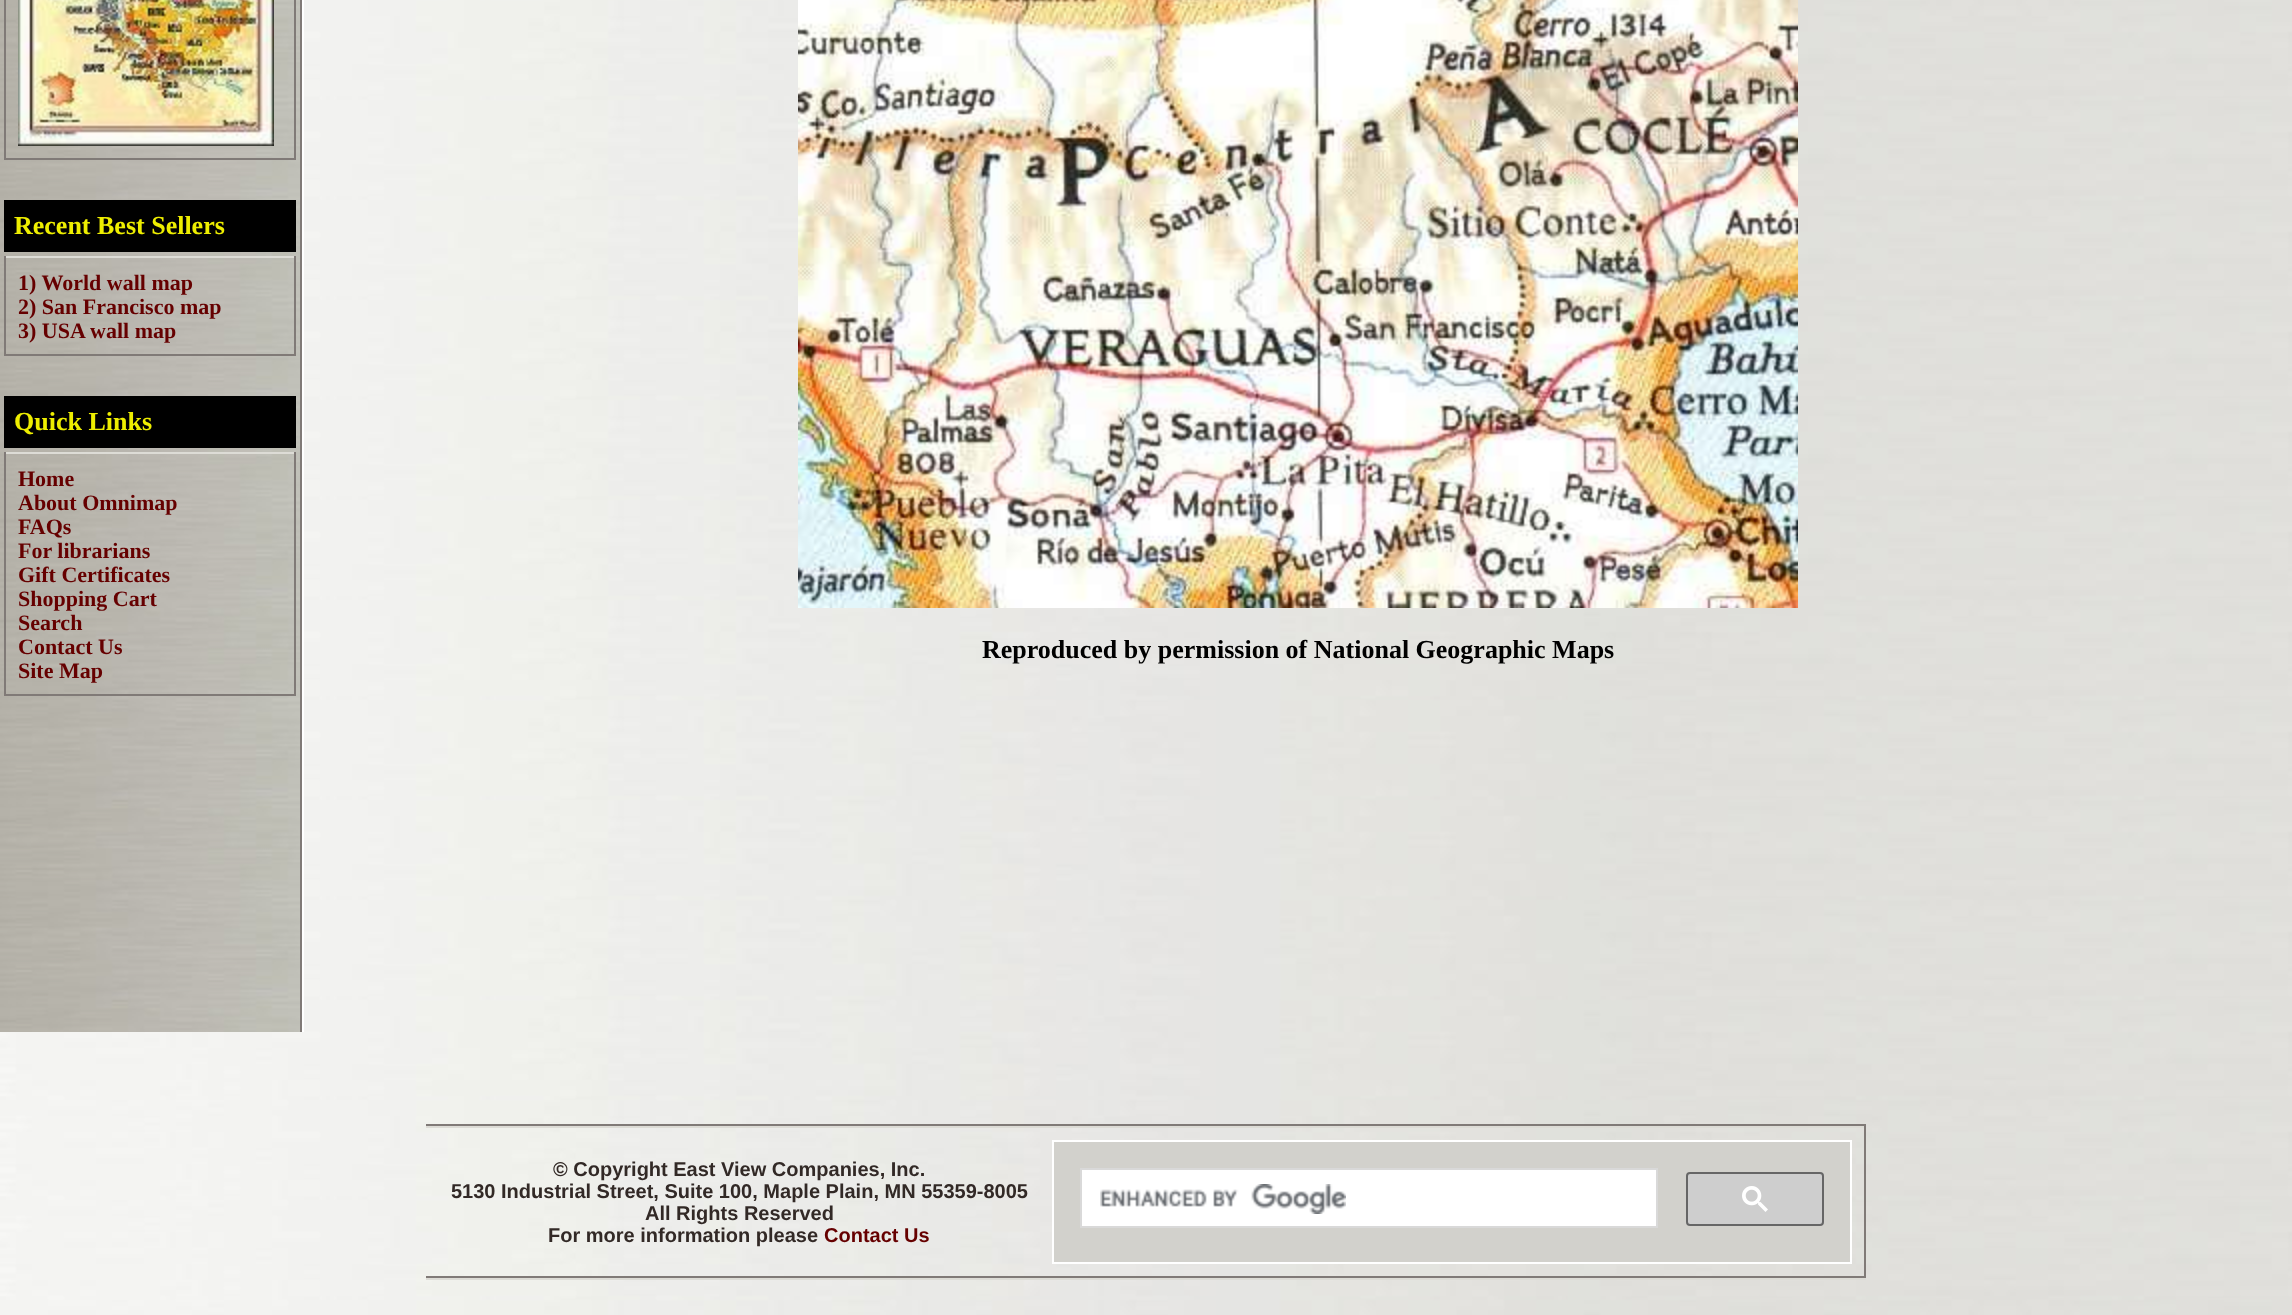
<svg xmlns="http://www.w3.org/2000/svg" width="2292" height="1315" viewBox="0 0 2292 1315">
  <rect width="100%" height="100%" fill="#ffffff"/>
  <image x="0" y="0" width="2292" height="1315" href="img1.png"/>
  <image x="0" y="0" width="300" height="1032" href="img2.png"/>
  <rect x="300" y="0" width="2" height="1032" fill="#807a77"/>
  <rect x="294" y="0" width="2" height="160" fill="#807a77"/>
  <rect x="4" y="158" width="292" height="2" fill="#807a77"/>
  <rect x="4" y="0" width="2" height="160" fill="#807a77"/>
  <image x="18" y="0" width="256" height="146" href="img3.png"/>
  <rect x="4" y="200" width="292" height="52" fill="#000000"/>
  <text x="14" y="234" font-family="Liberation Serif" font-size="26" font-weight="bold" fill="#eeee00">Recent Best Sellers</text>
  <rect x="4" y="256" width="292" height="2" fill="#dddcd6"/>
  <rect x="294" y="256" width="2" height="100" fill="#807a77"/>
  <rect x="4" y="354" width="292" height="2" fill="#807a77"/>
  <rect x="4" y="256" width="2" height="100" fill="#807a77"/>
  <text x="18" y="290" font-family="Liberation Serif" font-size="22" font-weight="bold" fill="#660000">1) World wall map</text>
  <text x="18" y="314" font-family="Liberation Serif" font-size="22" font-weight="bold" fill="#660000">2) San Francisco map</text>
  <text x="18" y="338" font-family="Liberation Serif" font-size="22" font-weight="bold" fill="#660000">3) USA wall map</text>
  <rect x="4" y="396" width="292" height="52" fill="#000000"/>
  <text x="14" y="430" font-family="Liberation Serif" font-size="26" font-weight="bold" fill="#eeee00">Quick Links</text>
  <rect x="4" y="452" width="292" height="2" fill="#dddcd6"/>
  <rect x="294" y="452" width="2" height="244" fill="#807a77"/>
  <rect x="4" y="694" width="292" height="2" fill="#807a77"/>
  <rect x="4" y="452" width="2" height="244" fill="#807a77"/>
  <text x="18" y="486" font-family="Liberation Serif" font-size="22" font-weight="bold" fill="#660000">Home</text>
  <text x="18" y="510" font-family="Liberation Serif" font-size="22" font-weight="bold" fill="#660000">About Omnimap</text>
  <text x="18" y="534" font-family="Liberation Serif" font-size="22" font-weight="bold" fill="#660000">FAQs</text>
  <text x="18" y="558" font-family="Liberation Serif" font-size="22" font-weight="bold" fill="#660000">For librarians</text>
  <text x="18" y="582" font-family="Liberation Serif" font-size="22" font-weight="bold" fill="#660000">Gift Certificates</text>
  <text x="18" y="606" font-family="Liberation Serif" font-size="22" font-weight="bold" fill="#660000">Shopping Cart</text>
  <text x="18" y="630" font-family="Liberation Serif" font-size="22" font-weight="bold" fill="#660000">Search</text>
  <text x="18" y="654" font-family="Liberation Serif" font-size="22" font-weight="bold" fill="#660000">Contact Us</text>
  <text x="18" y="678" font-family="Liberation Serif" font-size="22" font-weight="bold" fill="#660000">Site Map</text>
  <rect x="302" y="0" width="2" height="1032" fill="#ffffff"/>
  <image x="798" y="0" width="1000" height="608" href="img4.png"/>
  <text x="982" y="658" font-family="Liberation Serif" font-size="26" font-weight="bold" fill="#000000">Reproduced by permission of National Geographic Maps</text>
  <rect x="426" y="1124" width="1440" height="2" fill="#807a77"/>
  <rect x="1864" y="1124" width="2" height="156" fill="#807a77"/>
  <rect x="426" y="1278" width="1440" height="2" fill="#dddcd6"/>
  <rect x="426" y="1126" width="1438" height="2" fill="#dddcd6"/>
  <rect x="426" y="1276" width="1438" height="2" fill="#807a77"/>
  <text x="553" y="1176" font-family="Liberation Sans" font-size="20" font-weight="bold" fill="#322926">© Copyright East View Companies, Inc.</text>
  <text x="451" y="1198" font-family="Liberation Sans" font-size="20" font-weight="bold" fill="#322926">5130 Industrial Street, Suite 100, Maple Plain, MN 55359-8005</text>
  <text x="645" y="1220" font-family="Liberation Sans" font-size="20" font-weight="bold" fill="#322926">All Rights Reserved</text>
  <text x="548" y="1242" font-family="Liberation Sans" font-size="20" font-weight="bold" fill="#322926">For more information please</text>
  <text x="824" y="1242" font-family="Liberation Sans" font-size="20" font-weight="bold" fill="#660000">Contact Us</text>
  <rect x="1053" y="1141" width="798" height="122" fill="#d2d1cc" stroke="#ffffff" stroke-width="2"/>
  <rect x="1081" y="1169" width="576" height="58" fill="#ffffff" stroke="#d9d9d9" stroke-width="2"/>
  <image x="1100" y="1184" width="246" height="30" href="img5.png"/>
  <rect x="1687" y="1173" width="136" height="52" rx="3" fill="#cecece" stroke="#666666" stroke-width="2"/>
  <image x="1742" y="1186" width="26" height="26" href="img6.png"/>
</svg>
